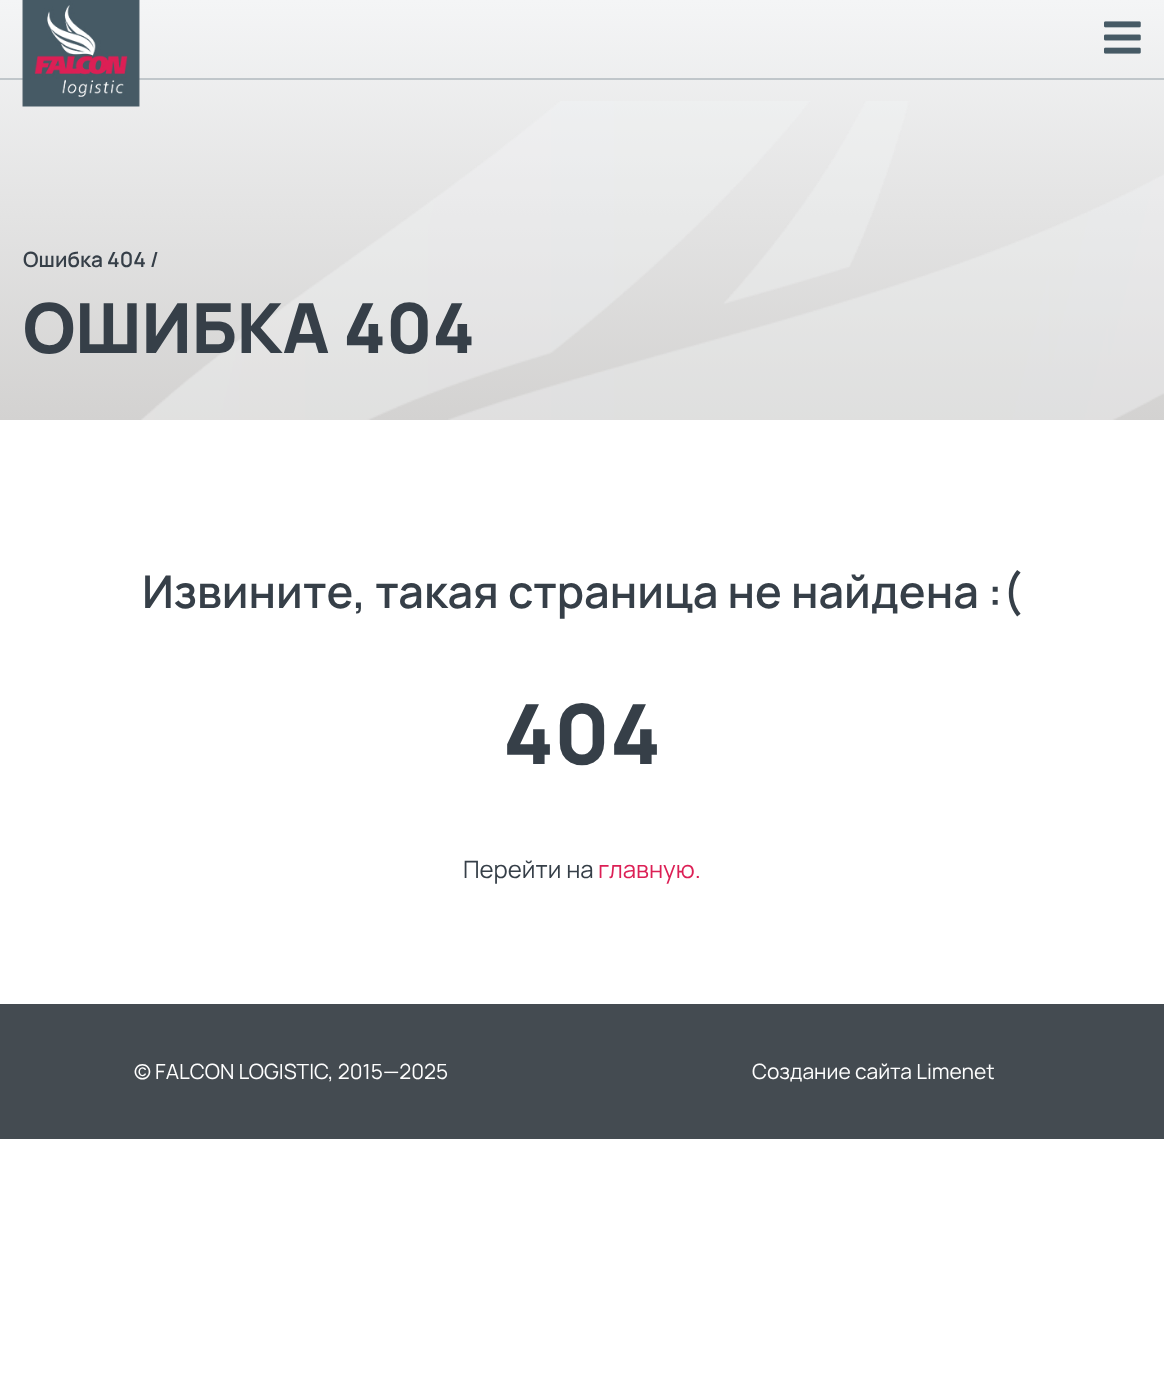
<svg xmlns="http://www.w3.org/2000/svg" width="1164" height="1373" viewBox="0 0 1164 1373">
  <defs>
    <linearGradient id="g1" gradientUnits="userSpaceOnUse" x1="582" y1="0" x2="582" y2="420"><stop offset="0" stop-color="#f4f5f6"/><stop offset="1" stop-color="#d3d2d1"/></linearGradient>
  </defs>
  <rect width="100%" height="100%" fill="#ffffff"/>
  <rect x="0" y="0" width="1164" height="420" fill="url(#g1)"/>
  <rect x="0" y="78" width="1164" height="2" fill="#c0c6ca"/>
  <image x="22" y="0" width="118" height="107" href="img1.png"/>
  <image x="1104" y="21" width="37" height="33" href="img2.png"/>
  <image x="141" y="101" width="1023" height="319" href="img3.png"/>
  <text x="23" y="267" font-family="Manrope" font-size="21" font-weight="600" fill="#363f48">Ошибка 404 /</text>
  <text x="23" y="353" font-family="Manrope" font-size="69" font-weight="800" fill="#363f48">ОШИБКА 404</text>
  <text x="142" y="608" font-family="Manrope" font-size="45" font-weight="600" fill="#363f48">Извините, такая страница не найдена :(</text>
  <text x="503" y="764" font-family="Manrope" font-size="83" font-weight="800" fill="#363f48">404</text>
  <text x="463" y="878" font-family="Manrope" font-size="24" fill="#363f48">Перейти на</text>
  <text x="598" y="878" font-family="Manrope" font-size="24" fill="#dc1f55">главную.</text>
  <rect x="0" y="1004" width="1164" height="135" fill="#444b51"/>
  <text x="134" y="1079" font-family="Manrope" font-size="21" fill="#fefefe">© FALCON LOGISTIC, 2015—2025</text>
  <text x="752" y="1079" font-family="Manrope" font-size="21" fill="#fefefe">Создание сайта Limenet</text>
</svg>
